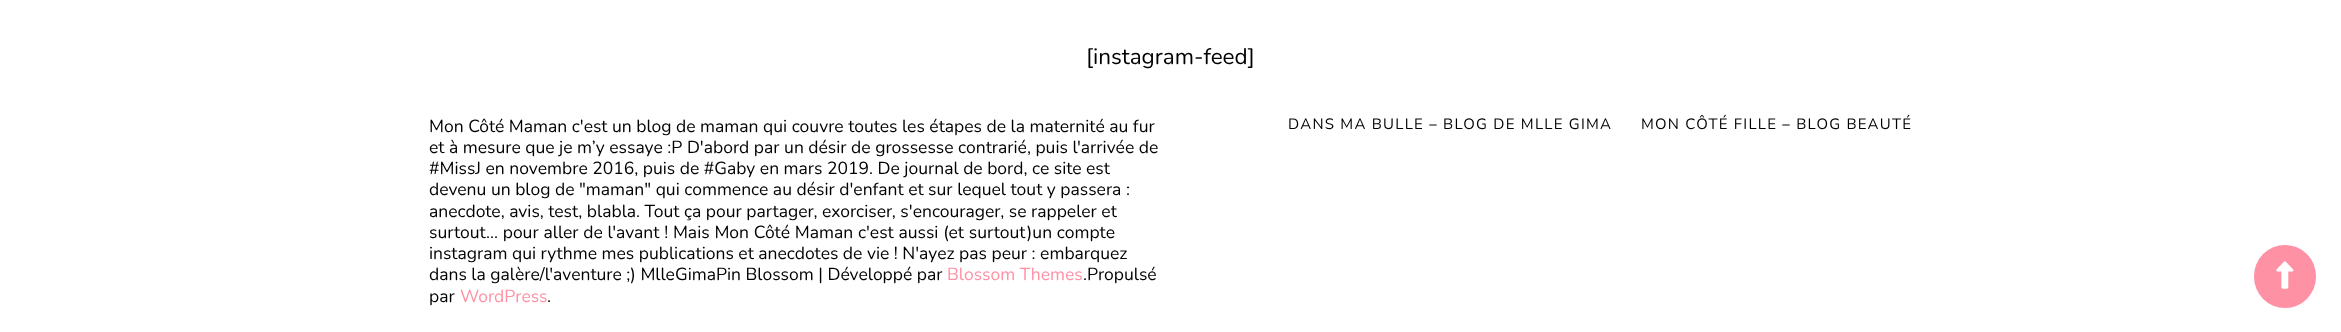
<svg xmlns="http://www.w3.org/2000/svg" width="2341" height="332" viewBox="0 0 2341 332">
  <rect width="100%" height="100%" fill="#ffffff"/>
  <text x="1086" y="64" font-family="Nunito" font-size="22.5" fill="#000000">[instagram-feed]</text>
  <text x="429" y="132" font-family="Nunito" font-size="17.5" fill="#000000">Mon Côté Maman c'est un blog de maman qui couvre toutes les étapes de la maternité au fur</text>
  <text x="429" y="153" font-family="Nunito" font-size="17.5" fill="#000000">et à mesure que je m’y essaye :P D'abord par un désir de grossesse contrarié, puis l'arrivée de</text>
  <text x="429" y="174" font-family="Nunito" font-size="17.5" fill="#000000">#MissJ en novembre 2016, puis de #Gaby en mars 2019. De journal de bord, ce site est</text>
  <text x="429" y="195" font-family="Nunito" font-size="17.5" fill="#000000">devenu un blog de "maman" qui commence au désir d'enfant et sur lequel tout y passera :</text>
  <text x="429" y="217" font-family="Nunito" font-size="17.5" fill="#000000">anecdote, avis, test, blabla. Tout ça pour partager, exorciser, s'encourager, se rappeler et</text>
  <text x="429" y="238" word-spacing="0.25" font-family="Nunito" font-size="17.5" fill="#000000">surtout… pour aller de l'avant ! Mais Mon Côté Maman c'est aussi (et surtout)un compte</text>
  <text x="429" y="259" font-family="Nunito" font-size="17.5" fill="#000000">instagram qui rythme mes publications et anecdotes de vie ! N'ayez pas peur : embarquez</text>
  <text x="429" y="280" font-family="Nunito" font-size="17.5" fill="#000000">dans la galère/l'aventure ;) MlleGimaPin Blossom | Développé par</text>
  <text x="947" y="280" font-family="Nunito" font-size="17.5" fill="#ff91a4">Blossom Themes</text>
  <text x="1083" y="280" font-family="Nunito" font-size="17.5" fill="#000000">.Propulsé</text>
  <text x="429" y="302" font-family="Nunito" font-size="17.5" fill="#000000">par</text>
  <text x="460" y="302" font-family="Nunito" font-size="17.5" fill="#ff91a4">WordPress</text>
  <text x="547" y="302" font-family="Nunito" font-size="17.5" fill="#000000">.</text>
  <text x="1288" y="129" font-family="Nunito" font-size="15" letter-spacing="1.25" fill="#000000">DANS MA BULLE – BLOG DE MLLE GIMA</text>
  <text x="1641" y="129" font-family="Nunito" font-size="15" letter-spacing="1.25" fill="#000000">MON CÔTÉ FILLE – BLOG BEAUTÉ</text>
  <rect x="2254" y="245" width="62" height="63" rx="31" fill="#ff91a4"/>
  <image x="2276" y="261" width="18" height="28" href="img1.png"/>
</svg>
